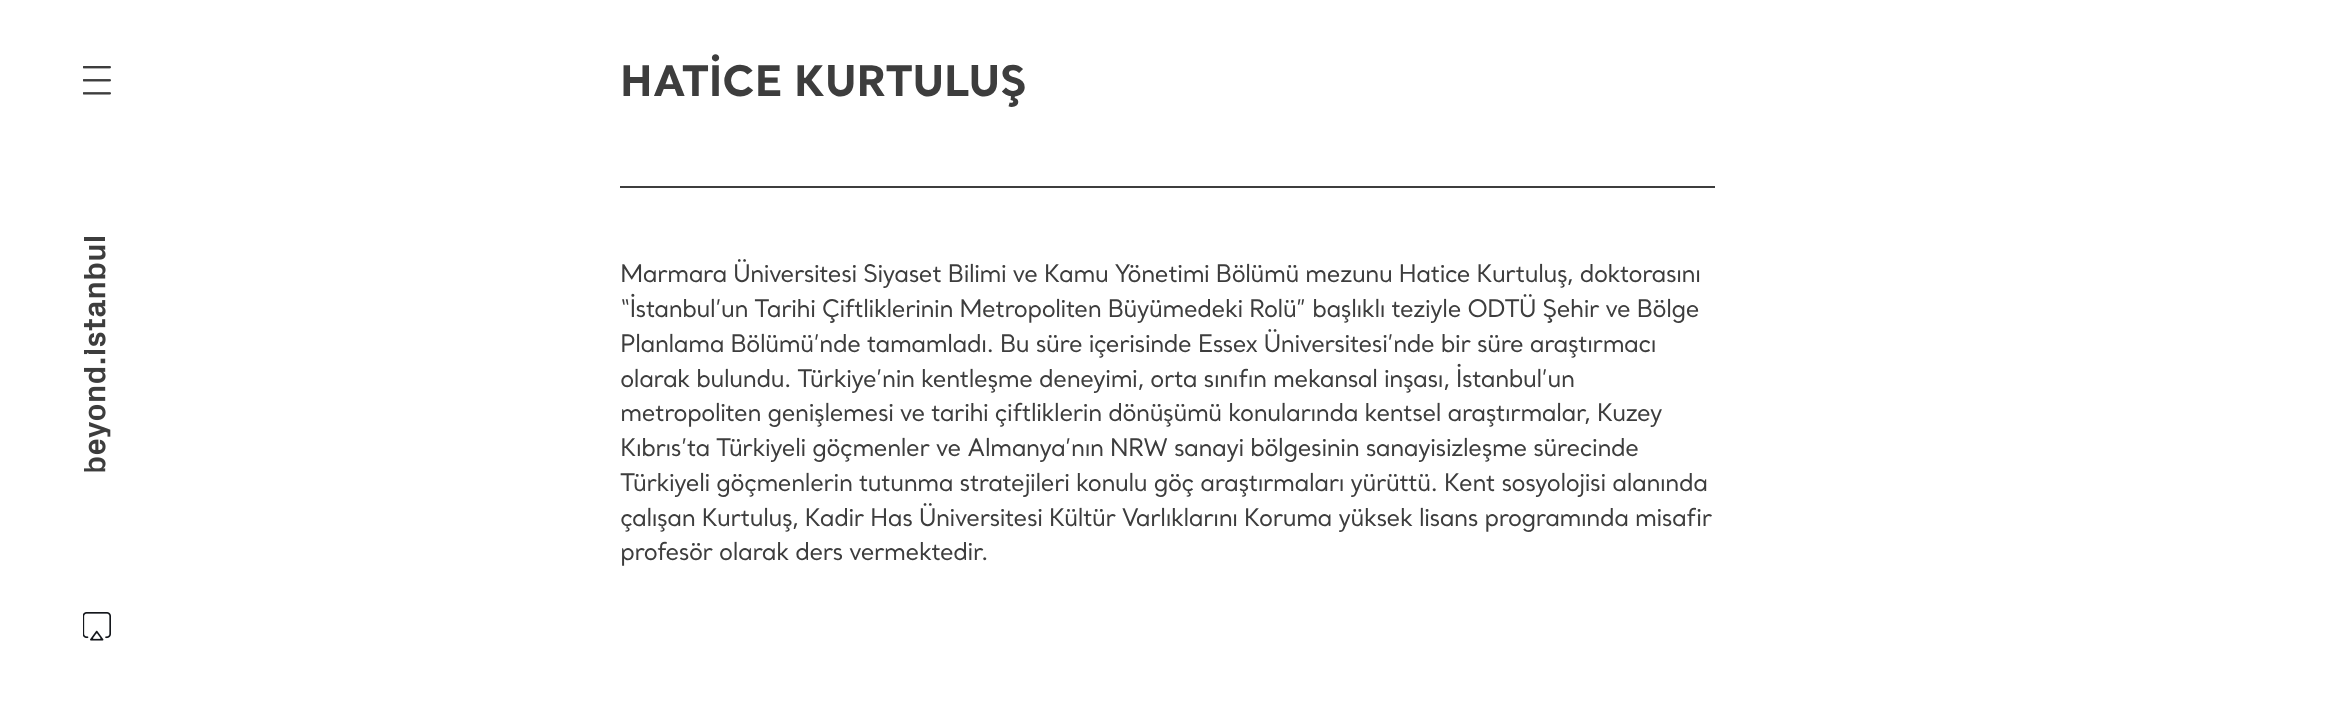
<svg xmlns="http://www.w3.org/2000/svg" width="2334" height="702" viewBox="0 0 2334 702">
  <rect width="100%" height="100%" fill="#ffffff"/>
  <image x="83" y="66" width="28" height="29" href="img1.png"/>
  <image x="84" y="237" width="27" height="235" href="img2.png"/>
  <image x="83" y="612" width="28" height="29" href="img3.png"/>
  <text x="620" y="96" font-family="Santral" font-size="42" font-weight="bold" fill="#3d3d3d">HATİCE KURTULUŞ</text>
  <rect x="620" y="186" width="1095" height="2" fill="#3d3d3d"/>
  <text x="620" y="282" font-family="Santral" font-size="24" letter-spacing="-0.84" fill="#3d3d3d">Marmara Üniversitesi Siyaset Bilimi ve Kamu Yönetimi Bölümü mezunu Hatice Kurtuluş, doktorasını</text>
  <text x="620" y="317" font-family="Santral" font-size="24" letter-spacing="-0.84" fill="#3d3d3d">“İstanbul’un Tarihi Çiftliklerinin Metropoliten Büyümedeki Rolü” başlıklı teziyle ODTÜ Şehir ve Bölge</text>
  <text x="620" y="352" font-family="Santral" font-size="24" letter-spacing="-0.84" fill="#3d3d3d">Planlama Bölümü’nde tamamladı. Bu süre içerisinde Essex Üniversitesi’nde bir süre araştırmacı</text>
  <text x="620" y="387" font-family="Santral" font-size="24" letter-spacing="-0.84" fill="#3d3d3d">olarak bulundu. Türkiye’nin kentleşme deneyimi, orta sınıfın mekansal inşası, İstanbul’un</text>
  <text x="620" y="421" font-family="Santral" font-size="24" letter-spacing="-0.84" fill="#3d3d3d">metropoliten genişlemesi ve tarihi çiftliklerin dönüşümü konularında kentsel araştırmalar, Kuzey</text>
  <text x="620" y="456" font-family="Santral" font-size="24" letter-spacing="-0.84" fill="#3d3d3d">Kıbrıs’ta Türkiyeli göçmenler ve Almanya’nın NRW sanayi bölgesinin sanayisizleşme sürecinde</text>
  <text x="620" y="491" font-family="Santral" font-size="24" letter-spacing="-0.84" fill="#3d3d3d">Türkiyeli göçmenlerin tutunma stratejileri konulu göç araştırmaları yürüttü. Kent sosyolojisi alanında</text>
  <text x="620" y="526" font-family="Santral" font-size="24" letter-spacing="-0.84" fill="#3d3d3d">çalışan Kurtuluş, Kadir Has Üniversitesi Kültür Varlıklarını Koruma yüksek lisans programında misafir</text>
  <text x="620" y="560" font-family="Santral" font-size="24" letter-spacing="-0.84" fill="#3d3d3d">profesör olarak ders vermektedir.</text>
</svg>
